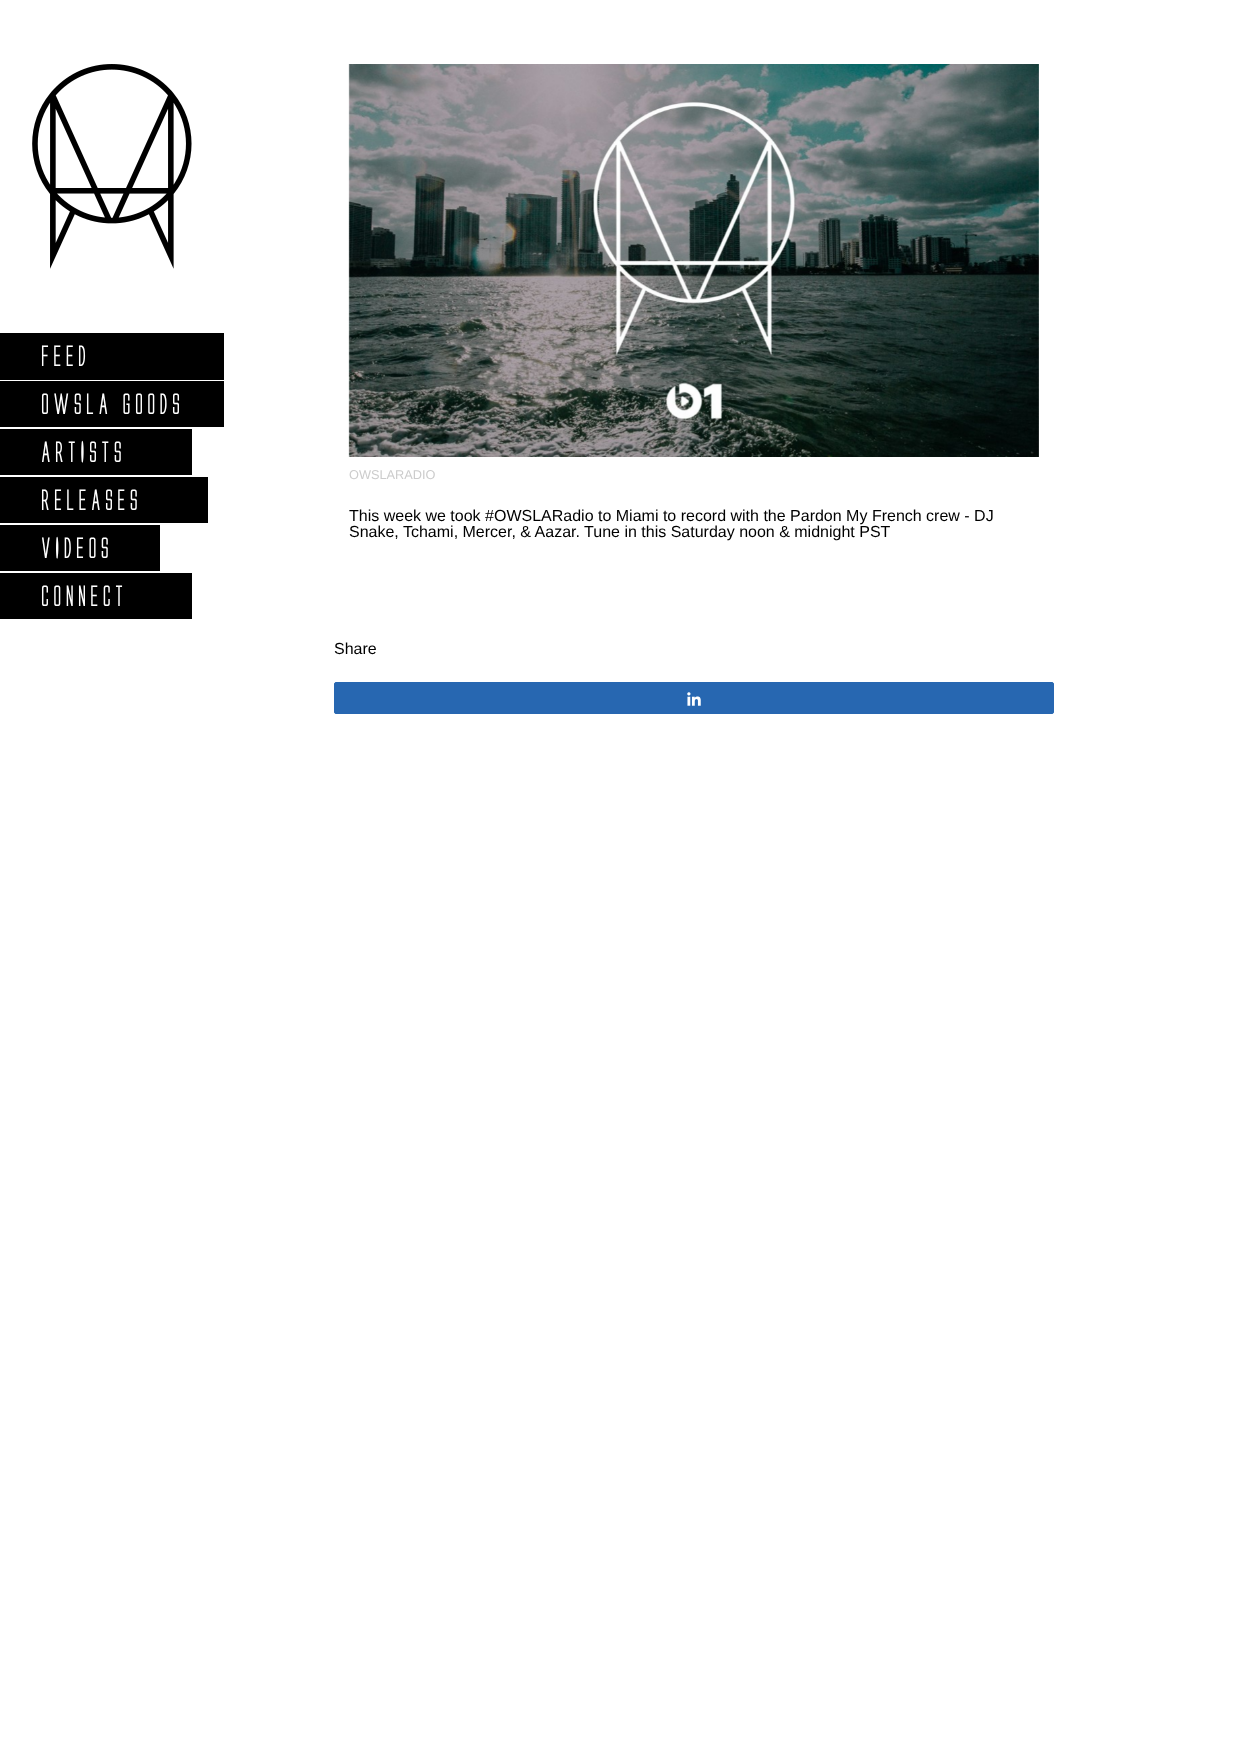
<svg xmlns="http://www.w3.org/2000/svg" width="1238" height="1752" viewBox="0 0 1238 1752">
  <rect width="100%" height="100%" fill="#ffffff"/>
  <image x="32" y="64" width="160" height="205" href="img1.png"/>
  <rect x="0" y="333" width="224" height="47" fill="#000000"/>
  <text x="40" y="366" font-family="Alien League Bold" font-size="27.25" font-weight="bold" letter-spacing="0.75" fill="#ffffff">FEED</text>
  <rect x="0" y="381" width="224" height="46" fill="#000000"/>
  <text x="40" y="414" font-family="Alien League Bold" font-size="27.25" font-weight="bold" letter-spacing="0.75" fill="#ffffff">OWSLA GOODS</text>
  <rect x="0" y="429" width="192" height="46" fill="#000000"/>
  <text x="40" y="462" font-family="Alien League Bold" font-size="27.25" font-weight="bold" letter-spacing="0.75" fill="#ffffff">ARTISTS</text>
  <rect x="0" y="477" width="208" height="46" fill="#000000"/>
  <text x="40" y="510" font-family="Alien League Bold" font-size="27.25" font-weight="bold" letter-spacing="0.75" fill="#ffffff">RELEASES</text>
  <rect x="0" y="525" width="160" height="46" fill="#000000"/>
  <text x="40" y="558" font-family="Alien League Bold" font-size="27.25" font-weight="bold" letter-spacing="0.75" fill="#ffffff">VIDEOS</text>
  <rect x="0" y="573" width="192" height="46" fill="#000000"/>
  <text x="40" y="606" font-family="Alien League Bold" font-size="27.25" font-weight="bold" letter-spacing="0.75" fill="#ffffff">CONNECT</text>
  <image x="348" y="64" width="691" height="393" href="img2.png"/>
  <text x="349" y="479" font-family="Liberation Sans" font-size="12.75" fill="#cccccc">OWSLARADIO</text>
  <text x="349" y="521" font-family="Liberation Sans" font-size="16" fill="#000000">This week we took #OWSLARadio to Miami to record with the Pardon My French crew - DJ</text>
  <text x="349" y="537" font-family="Liberation Sans" font-size="16" fill="#000000">Snake, Tchami, Mercer, &amp; Aazar. Tune in this Saturday noon &amp; midnight PST</text>
  <text x="334" y="654" font-family="Liberation Sans" font-size="16" fill="#000000">Share</text>
  <rect x="334.5" y="682.5" width="719" height="31" rx="1.5" fill="#2767b1" stroke="#2767b1"/>
  <image x="687" y="692" width="14" height="14" href="img3.png"/>
</svg>
